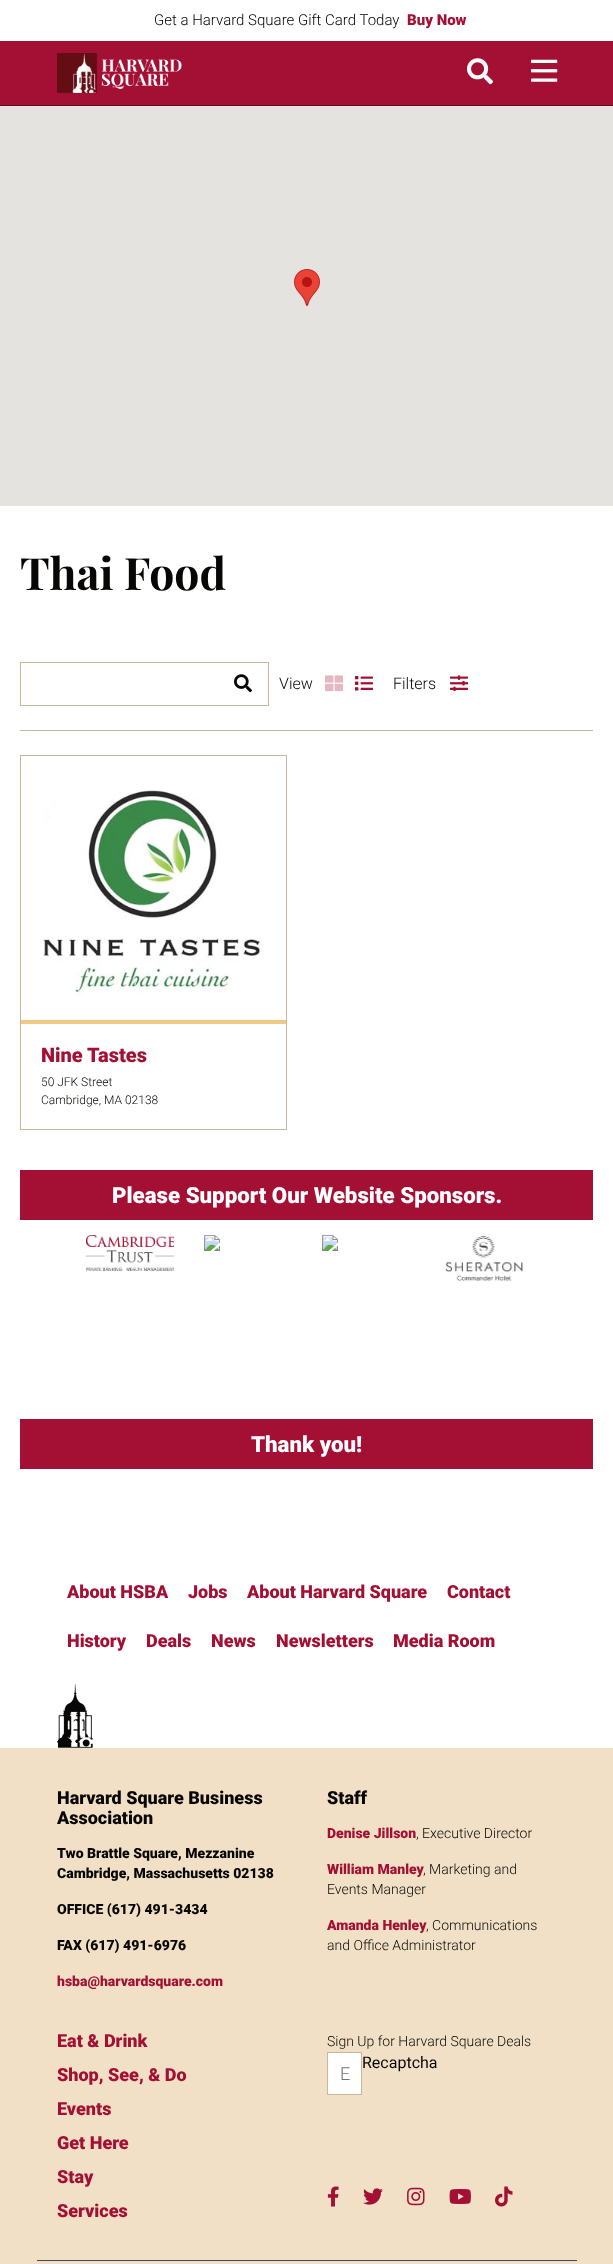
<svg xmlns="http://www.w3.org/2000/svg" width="613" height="2264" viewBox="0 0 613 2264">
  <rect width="100%" height="100%" fill="#ffffff"/>
  <text x="154" y="25" font-family="Roboto" font-size="15" font-weight="300" fill="#000000">Get a Harvard Square Gift Card Today</text>
  <text x="407" y="25" font-family="Roboto" font-size="15" font-weight="900" fill="#a41034">Buy Now</text>
  <rect x="0" y="41" width="613" height="64" fill="#a41034"/>
  <rect x="0" y="105" width="613" height="1" fill="#640d14"/>
  <image x="57" y="53" width="125" height="40" href="img1.png"/>
  <image x="467" y="58" width="26" height="27" href="img2.png"/>
  <image x="531" y="59" width="27" height="23" href="img3.png"/>
  <rect x="0" y="106" width="613" height="400" fill="#e5e3df"/>
  <image x="294" y="269" width="26" height="37" href="img4.png"/>
  <text x="20" y="590" font-family="Playfair Display" font-size="44.5" font-weight="bold" fill="#080705">Thai Food</text>
  <rect x="20" y="730" width="573" height="1" fill="#c9b79c"/>
  <rect x="20.5" y="662.5" width="248" height="43" fill="none" stroke="#c9b79c"/>
  <image x="234" y="674" width="18" height="19" href="img5.png"/>
  <text x="279" y="689" font-family="Roboto" font-size="16" font-weight="300" fill="#080705">View</text>
  <image x="325" y="675" width="18" height="17" href="img6.png"/>
  <image x="355" y="675" width="18" height="16" href="img7.png"/>
  <text x="393" y="689" font-family="Roboto" font-size="16" font-weight="300" fill="#080705">Filters</text>
  <image x="450" y="675" width="18" height="17" href="img8.png"/>
  <rect x="20.5" y="755.5" width="266" height="374" fill="none" stroke="#c9b79c"/>
  <image x="42" y="790" width="221" height="206" href="img9.png"/>
  <rect x="21" y="1020" width="265" height="4" fill="#f0c987"/>
  <text x="41" y="1062" font-family="Roboto" font-size="20" font-weight="900" fill="#a41034">Nine Tastes</text>
  <text x="41" y="1086" font-family="Roboto" font-size="12" font-weight="300" fill="#080705">50 JFK Street</text>
  <text x="41" y="1104" font-family="Roboto" font-size="12" font-weight="300" fill="#080705">Cambridge, MA 02138</text>
  <rect x="20" y="1170" width="573" height="50" fill="#a41034"/>
  <text x="112" y="1203" font-family="Roboto" font-size="22.25" font-weight="900" fill="#ffffff">Please Support Our Website Sponsors.</text>
  <image x="86" y="1235" width="438" height="47" href="img10.png"/>
  <rect x="20" y="1419" width="573" height="50" fill="#a41034"/>
  <text x="251" y="1452" font-family="Roboto" font-size="22.25" font-weight="900" fill="#ffffff">Thank you!</text>
  <text x="67" y="1598" font-family="Roboto" font-size="18" font-weight="900" fill="#a41034">About HSBA</text>
  <text x="188" y="1598" font-family="Roboto" font-size="18" font-weight="900" fill="#a41034">Jobs</text>
  <text x="247" y="1598" font-family="Roboto" font-size="18" font-weight="900" fill="#a41034">About Harvard Square</text>
  <text x="447" y="1598" font-family="Roboto" font-size="18" font-weight="900" fill="#a41034">Contact</text>
  <text x="67" y="1647" font-family="Roboto" font-size="18" font-weight="900" fill="#a41034">History</text>
  <text x="146" y="1647" font-family="Roboto" font-size="18" font-weight="900" fill="#a41034">Deals</text>
  <text x="211" y="1647" font-family="Roboto" font-size="18" font-weight="900" fill="#a41034">News</text>
  <text x="276" y="1647" font-family="Roboto" font-size="18" font-weight="900" fill="#a41034">Newsletters</text>
  <text x="393" y="1647" font-family="Roboto" font-size="18" font-weight="900" fill="#a41034">Media Room</text>
  <image x="57" y="1684" width="36" height="64" href="img11.png"/>
  <rect x="0" y="1748" width="613" height="516" fill="#f1e0c5"/>
  <rect x="37" y="2260" width="540" height="1" fill="#42485b"/>
  <text x="57" y="1804" font-family="Roboto" font-size="18" font-weight="900" fill="#080705">Harvard Square Business</text>
  <text x="57" y="1824" font-family="Roboto" font-size="18" font-weight="900" fill="#080705">Association</text>
  <text x="57" y="1858" font-family="Roboto" font-size="14" font-weight="900" fill="#080705">Two Brattle Square, Mezzanine</text>
  <text x="57" y="1878" font-family="Roboto" font-size="14" font-weight="900" fill="#080705">Cambridge, Massachusetts 02138</text>
  <text x="57" y="1914" font-family="Roboto" font-size="14" font-weight="900" fill="#080705">OFFICE (617) 491-3434</text>
  <text x="57" y="1950" font-family="Roboto" font-size="14" font-weight="900" fill="#080705">FAX (617) 491-6976</text>
  <text x="57" y="1986" font-family="Roboto" font-size="14" font-weight="900" fill="#a41034">hsba@harvardsquare.com</text>
  <text x="327" y="1804" font-family="Roboto" font-size="18" font-weight="900" fill="#080705">Staff</text>
  <text x="327" y="1838" font-family="Roboto" font-size="14" font-weight="900" fill="#a41034">Denise Jillson</text>
  <text x="416" y="1838" font-family="Roboto" font-size="14" font-weight="300" fill="#080705">, Executive Director</text>
  <text x="327" y="1874" font-family="Roboto" font-size="14" font-weight="900" fill="#a41034">William Manley</text>
  <text x="423" y="1874" font-family="Roboto" font-size="14" font-weight="300" fill="#080705">, Marketing and</text>
  <text x="327" y="1894" font-family="Roboto" font-size="14" font-weight="300" fill="#080705">Events Manager</text>
  <text x="327" y="1930" font-family="Roboto" font-size="14" font-weight="900" fill="#a41034">Amanda Henley</text>
  <text x="426" y="1930" font-family="Roboto" font-size="14" font-weight="300" fill="#080705">, Communications</text>
  <text x="327" y="1950" font-family="Roboto" font-size="14" font-weight="300" fill="#080705">and Office Administrator</text>
  <text x="57" y="2047" font-family="Roboto" font-size="18" font-weight="900" fill="#a41034">Eat &amp; Drink</text>
  <text x="57" y="2081" font-family="Roboto" font-size="18" font-weight="900" fill="#a41034">Shop, See, &amp; Do</text>
  <text x="57" y="2115" font-family="Roboto" font-size="18" font-weight="900" fill="#a41034">Events</text>
  <text x="57" y="2149" font-family="Roboto" font-size="18" font-weight="900" fill="#a41034">Get Here</text>
  <text x="57" y="2183" font-family="Roboto" font-size="18" font-weight="900" fill="#a41034">Stay</text>
  <text x="57" y="2217" font-family="Roboto" font-size="18" font-weight="900" fill="#a41034">Services</text>
  <text x="327" y="2046" font-family="Roboto" font-size="14" font-weight="300" fill="#080705">Sign Up for Harvard Square Deals</text>
  <text x="362" y="2068" font-family="Roboto" font-size="16" fill="#080705">Recaptcha</text>
  <rect x="327.5" y="2052.5" width="34" height="42" fill="#ffffff" stroke="#c9b79c"/>
  <text x="340" y="2080" font-family="Roboto" font-size="18" font-weight="300" fill="#6c757d">E</text>
  <image x="327" y="2186" width="12" height="21" href="img12.png"/>
  <image x="363" y="2188" width="20" height="17" href="img13.png"/>
  <image x="407" y="2187" width="18" height="19" href="img14.png"/>
  <image x="449" y="2189" width="22" height="15" href="img15.png"/>
  <image x="495" y="2186" width="18" height="21" href="img16.png"/>
</svg>
